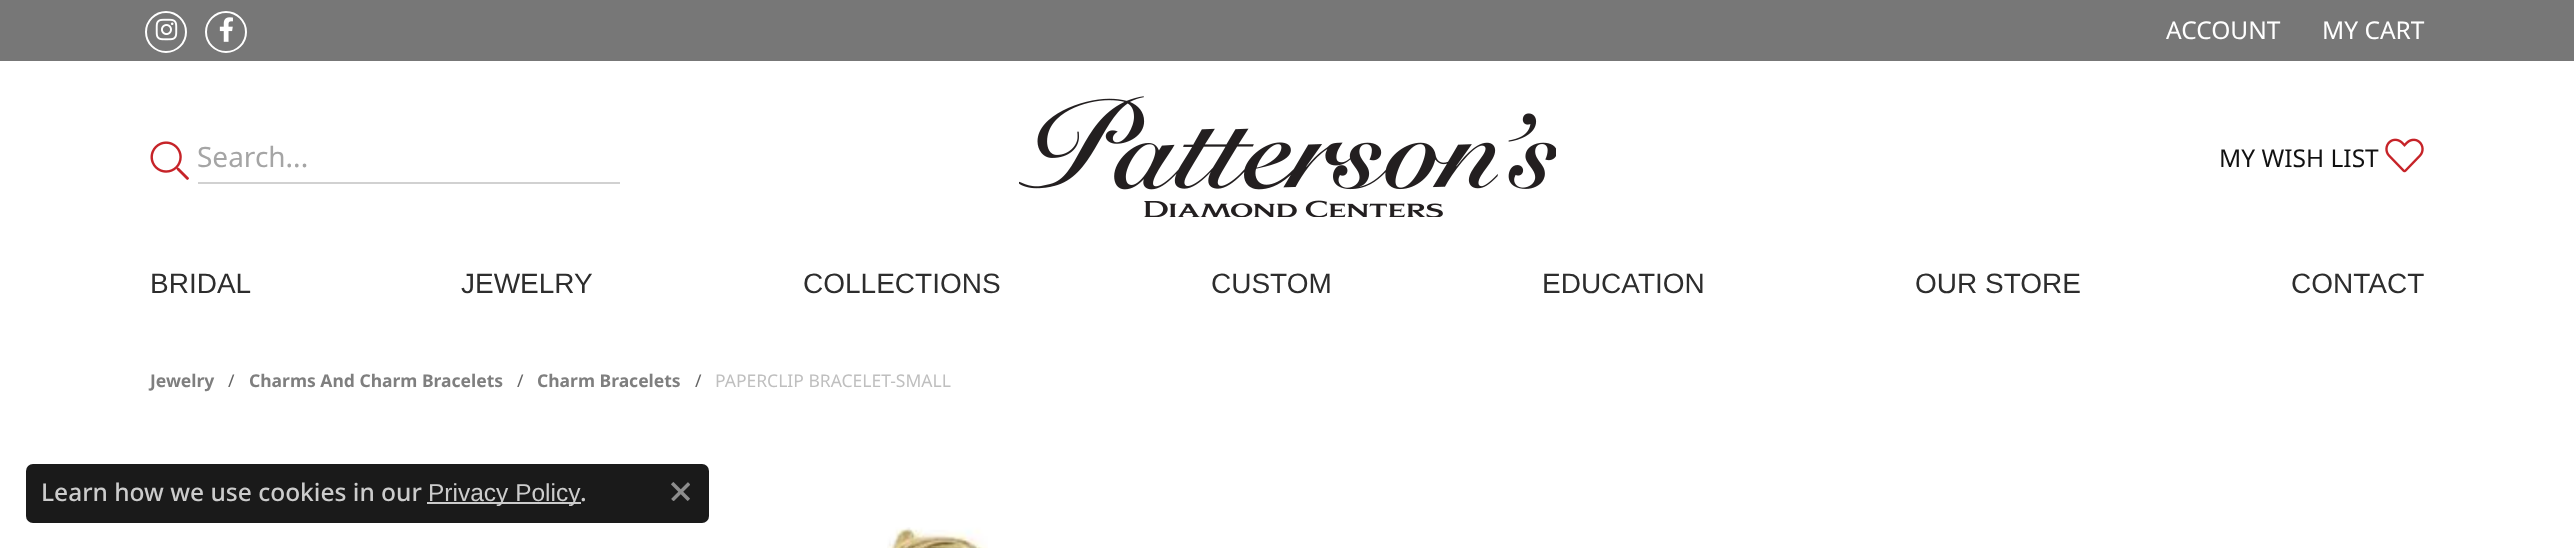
<svg xmlns="http://www.w3.org/2000/svg" width="2574" height="548" viewBox="0 0 2574 548">
  <rect width="100%" height="100%" fill="#777777"/>
  <circle cx="166" cy="32" r="20" fill="none" stroke="#ffffff" stroke-width="2"/>
  <image x="155" y="18" width="23" height="23" href="img1.png"/>
  <circle cx="226" cy="32" r="20" fill="none" stroke="#ffffff" stroke-width="2"/>
  <image x="219" y="17" width="14" height="25" href="img2.png"/>
  <text x="2166" y="39" font-family="Noto Sans" font-size="24.5" fill="#ffffff">ACCOUNT</text>
  <text x="2322" y="39" font-family="Noto Sans" font-size="24.5" fill="#ffffff">MY CART</text>
  <rect x="0" y="61" width="2574" height="487" fill="#ffffff"/>
  <image x="150" y="141" width="39" height="39" href="img3.png"/>
  <rect x="198" y="182" width="422" height="2" fill="#d1d1d1"/>
  <text x="197" y="167" font-family="Noto Sans" font-size="28" fill="#a5a5a5">Search...</text>
  <image x="1019" y="96" width="537" height="121" href="img4.png"/>
  <text x="2219" y="167" font-family="Noto Sans" font-size="24.5" fill="#111111">MY WISH LIST</text>
  <image x="2385" y="138" width="39" height="35" href="img5.png"/>
  <text x="150" y="293" font-family="Liberation Sans" font-size="28" fill="#2d2d2d">BRIDAL</text>
  <text x="461" y="293" font-family="Liberation Sans" font-size="28" fill="#2d2d2d">JEWELRY</text>
  <text x="803" y="293" font-family="Liberation Sans" font-size="28" fill="#2d2d2d">COLLECTIONS</text>
  <text x="1211" y="293" font-family="Liberation Sans" font-size="28" fill="#2d2d2d">CUSTOM</text>
  <text x="1542" y="293" font-family="Liberation Sans" font-size="28" fill="#2d2d2d">EDUCATION</text>
  <text x="1915" y="293" font-family="Liberation Sans" font-size="28" fill="#2d2d2d">OUR STORE</text>
  <text x="2291" y="293" font-family="Liberation Sans" font-size="28" fill="#2d2d2d">CONTACT</text>
  <text x="150" y="387" font-family="Noto Sans" font-size="17.5" font-weight="bold" fill="#7f7f7f">Jewelry</text>
  <text x="228" y="387" font-family="Noto Sans" font-size="17.5" fill="#646464">/</text>
  <text x="249" y="387" font-family="Noto Sans" font-size="17.5" font-weight="bold" fill="#7f7f7f">Charms And Charm Bracelets</text>
  <text x="517" y="387" font-family="Noto Sans" font-size="17.5" fill="#646464">/</text>
  <text x="537" y="387" font-family="Noto Sans" font-size="17.5" font-weight="bold" fill="#7f7f7f">Charm Bracelets</text>
  <text x="695" y="387" font-family="Noto Sans" font-size="17.5" fill="#646464">/</text>
  <text x="715" y="387" font-family="Noto Sans" font-size="17.5" fill="#bfbfbf">PAPERCLIP BRACELET-SMALL</text>
  <image x="887" y="527" width="101" height="21" href="img6.png"/>
  <rect x="26" y="464" width="683" height="59" rx="7" fill="#1a1a1a"/>
  <text x="41" y="501" font-family="Noto Sans" font-size="24.5" font-weight="500" fill="#cccccc">Learn how we use cookies in our</text>
  <rect x="427" y="502" width="154" height="2" fill="#cccccc"/>
  <text x="428" y="501" font-family="Liberation Sans" font-size="24.5" fill="#cccccc">Privacy Policy</text>
  <text x="580" y="501" font-family="Noto Sans" font-size="24.5" font-weight="500" fill="#cccccc">.</text>
  <image x="671" y="482" width="19" height="19" href="img7.png"/>
</svg>
